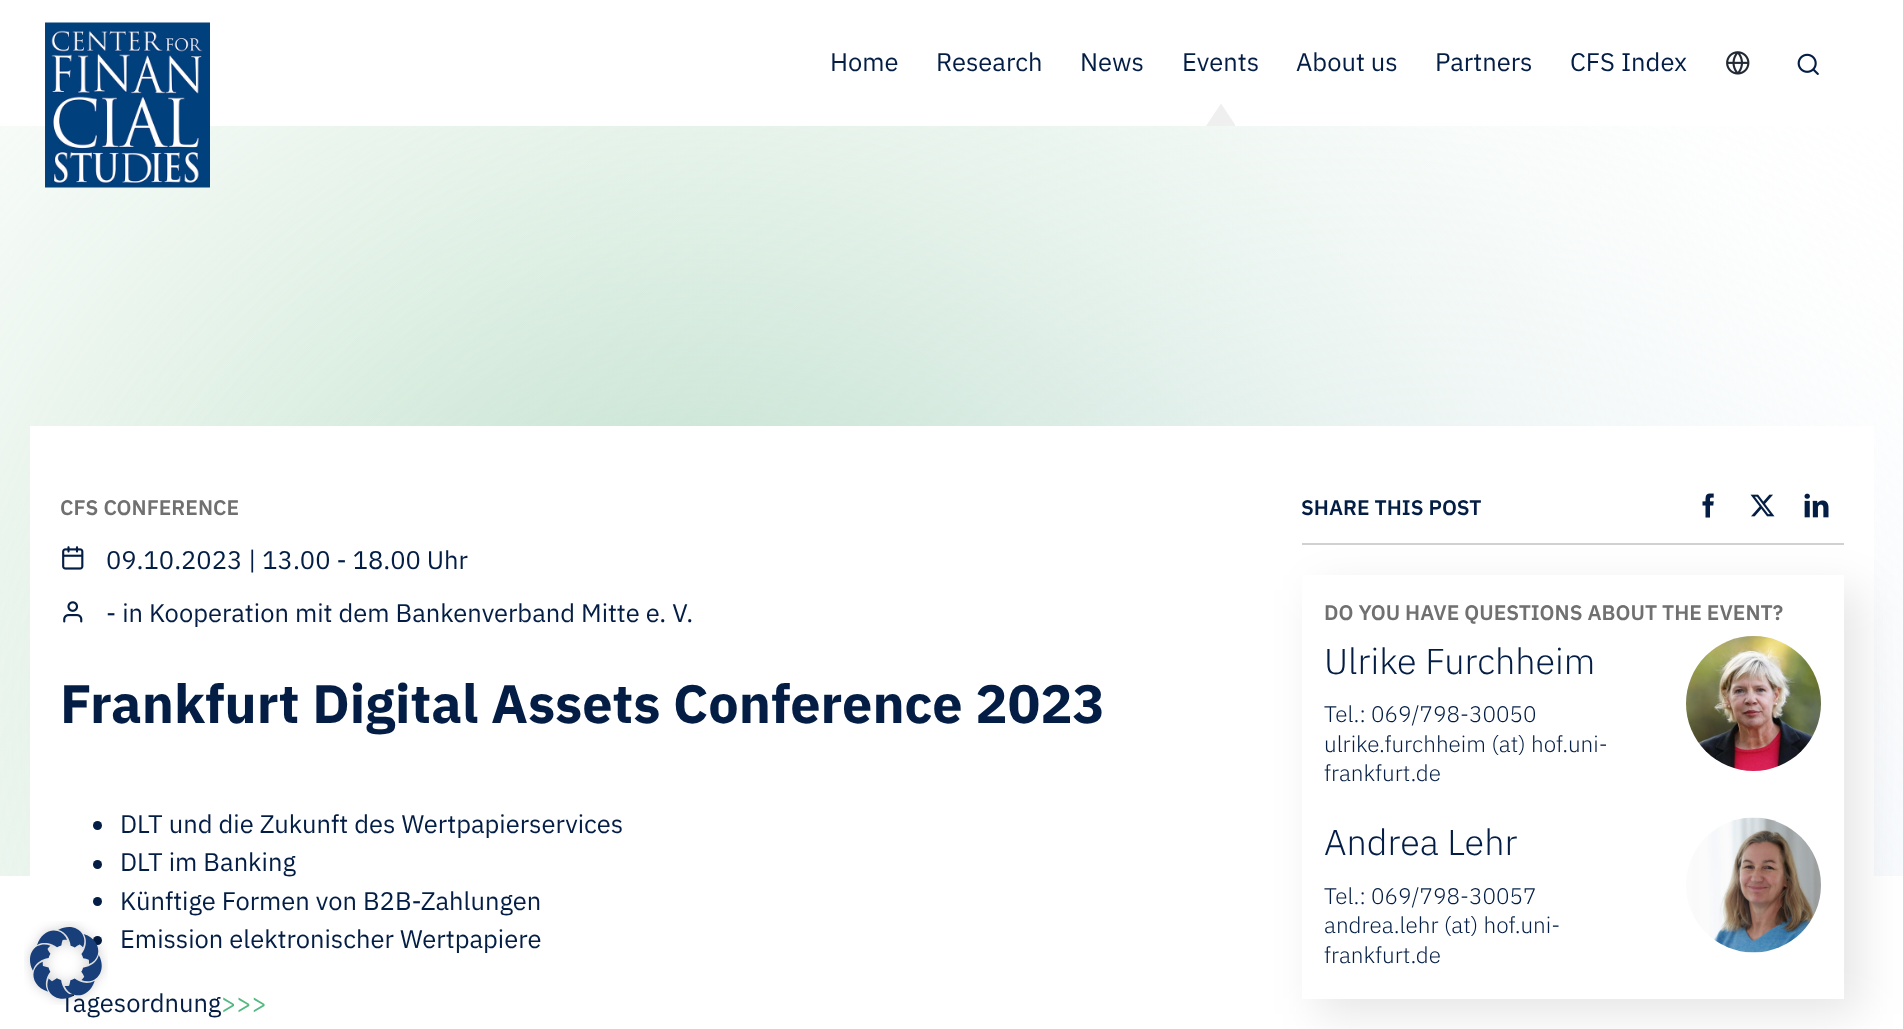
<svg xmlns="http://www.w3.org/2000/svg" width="1903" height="1029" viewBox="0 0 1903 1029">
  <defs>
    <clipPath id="clip1"><rect x="1205" y="104" width="30" height="22"/></clipPath>
    <filter id="blur1" x="-50%" y="-200%" width="200%" height="500%"><feGaussianBlur stdDeviation="22.5"/></filter>
  </defs>
  <rect width="100%" height="100%" fill="#ffffff"/>
  <image x="0" y="126" width="1903" height="750" href="img4.png"/>
  <image x="45" y="22" width="165" height="166" href="img1.png"/>
  <text x="830" y="71" font-family="IBM Plex Sans" font-size="25.5" fill="#031d44">Home</text>
  <text x="936" y="71" font-family="IBM Plex Sans" font-size="25.5" fill="#031d44">Research</text>
  <text x="1080" y="71" font-family="IBM Plex Sans" font-size="25.5" fill="#031d44">News</text>
  <text x="1182" y="71" font-family="IBM Plex Sans" font-size="25.5" fill="#031d44">Events</text>
  <g clip-path="url(#clip1)">
    <path d="M1236 126L1221 103.5L1206 126Z" fill="#efefef"/>
  </g>
  <text x="1296" y="71" font-family="IBM Plex Sans" font-size="25.5" fill="#031d44">About us</text>
  <text x="1435" y="71" font-family="IBM Plex Sans" font-size="25.5" fill="#031d44">Partners</text>
  <text x="1570" y="71" font-family="IBM Plex Sans" font-size="25.5" fill="#031d44">CFS Index</text>
  <image x="1726" y="51" width="24" height="24" href="img2.png"/>
  <image x="1797" y="53" width="22" height="22" href="img3.png"/>
  <rect x="30" y="426" width="1844" height="450" fill="#ffffff"/>
  <text x="60" y="515" font-family="IBM Plex Sans" font-size="21" font-weight="600" fill="#707070">CFS CONFERENCE</text>
  <image x="62" y="546" width="22" height="24" href="img5.png"/>
  <text x="106" y="569" font-family="IBM Plex Sans" font-size="25.5" fill="#031d44">09.10.2023 | 13.00 - 18.00 Uhr</text>
  <image x="63" y="601" width="20" height="22" href="img6.png"/>
  <text x="106" y="622" font-family="IBM Plex Sans" font-size="25.5" fill="#031d44">- in Kooperation mit dem Bankenverband Mitte e. V.</text>
  <text x="60" y="723" font-family="IBM Plex Sans" font-size="54" font-weight="bold" fill="#031d44">Frankfurt Digital Assets Conference 2023</text>
  <circle cx="97.5" cy="825.5" r="4.5" fill="#031d44"/>
  <text x="120" y="833" font-family="IBM Plex Sans" font-size="25.5" fill="#031d44">DLT und die Zukunft des Wertpapierservices</text>
  <circle cx="97.5" cy="864.5" r="4.5" fill="#031d44"/>
  <text x="120" y="871" font-family="IBM Plex Sans" font-size="25.5" fill="#031d44">DLT im Banking</text>
  <circle cx="97.5" cy="901.5" r="4.5" fill="#031d44"/>
  <text x="120" y="910" font-family="IBM Plex Sans" font-size="25.5" fill="#031d44">Künftige Formen von B2B-Zahlungen</text>
  <circle cx="97.5" cy="940.5" r="4.5" fill="#031d44"/>
  <text x="120" y="948" font-family="IBM Plex Sans" font-size="25.5" fill="#031d44">Emission elektronischer Wertpapiere</text>
  <text x="60" y="1012" font-family="IBM Plex Sans" font-size="25.5" fill="#031d44">Tagesordnung</text>
  <text x="221" y="1012" font-family="IBM Plex Sans" font-size="25.5" fill="#54b981">&gt;&gt;&gt;</text>
  <rect x="1317" y="590" width="542" height="424" fill="#000000" fill-opacity="0.1" filter="url(#blur1)"/>
  <rect x="1302" y="543" width="542" height="2" fill="#d1d1d1"/>
  <text x="1301" y="515" font-family="IBM Plex Sans" font-size="21" font-weight="600" fill="#031d44">SHARE THIS POST</text>
  <image x="1702" y="493" width="12" height="25" href="img7.png"/>
  <image x="1750" y="494" width="25" height="23" href="img8.png"/>
  <image x="1804" y="493" width="25" height="25" href="img9.png"/>
  <rect x="1302" y="575" width="542" height="424" fill="#ffffff"/>
  <text x="1324" y="620" font-family="IBM Plex Sans" font-size="21" font-weight="600" fill="#707070">DO YOU HAVE QUESTIONS ABOUT THE EVENT?</text>
  <text x="1324" y="674" font-family="IBM Plex Sans" font-size="36" font-weight="300" fill="#031d44">Ulrike Furchheim</text>
  <text x="1324" y="722" font-family="IBM Plex Sans" font-size="22.5" font-weight="300" fill="#031d44">Tel.: 069/798-30050</text>
  <text x="1324" y="752" font-family="IBM Plex Sans" font-size="22.5" font-weight="300" fill="#031d44">ulrike.furchheim (at) hof.uni-</text>
  <text x="1324" y="781" font-family="IBM Plex Sans" font-size="22.5" font-weight="300" fill="#031d44">frankfurt.de</text>
  <image x="1686" y="636" width="135" height="135" href="img10.png"/>
  <text x="1324" y="855" font-family="IBM Plex Sans" font-size="36" font-weight="300" fill="#031d44">Andrea Lehr</text>
  <text x="1324" y="904" font-family="IBM Plex Sans" font-size="22.5" font-weight="300" fill="#031d44">Tel.: 069/798-30057</text>
  <text x="1324" y="933" font-family="IBM Plex Sans" font-size="22.5" font-weight="300" fill="#031d44">andrea.lehr (at) hof.uni-</text>
  <text x="1324" y="963" font-family="IBM Plex Sans" font-size="22.5" font-weight="300" fill="#031d44">frankfurt.de</text>
  <image x="1686" y="817" width="135" height="136" href="img11.png"/>
  <image x="24" y="921" width="84" height="84" href="img12.png"/>
</svg>
